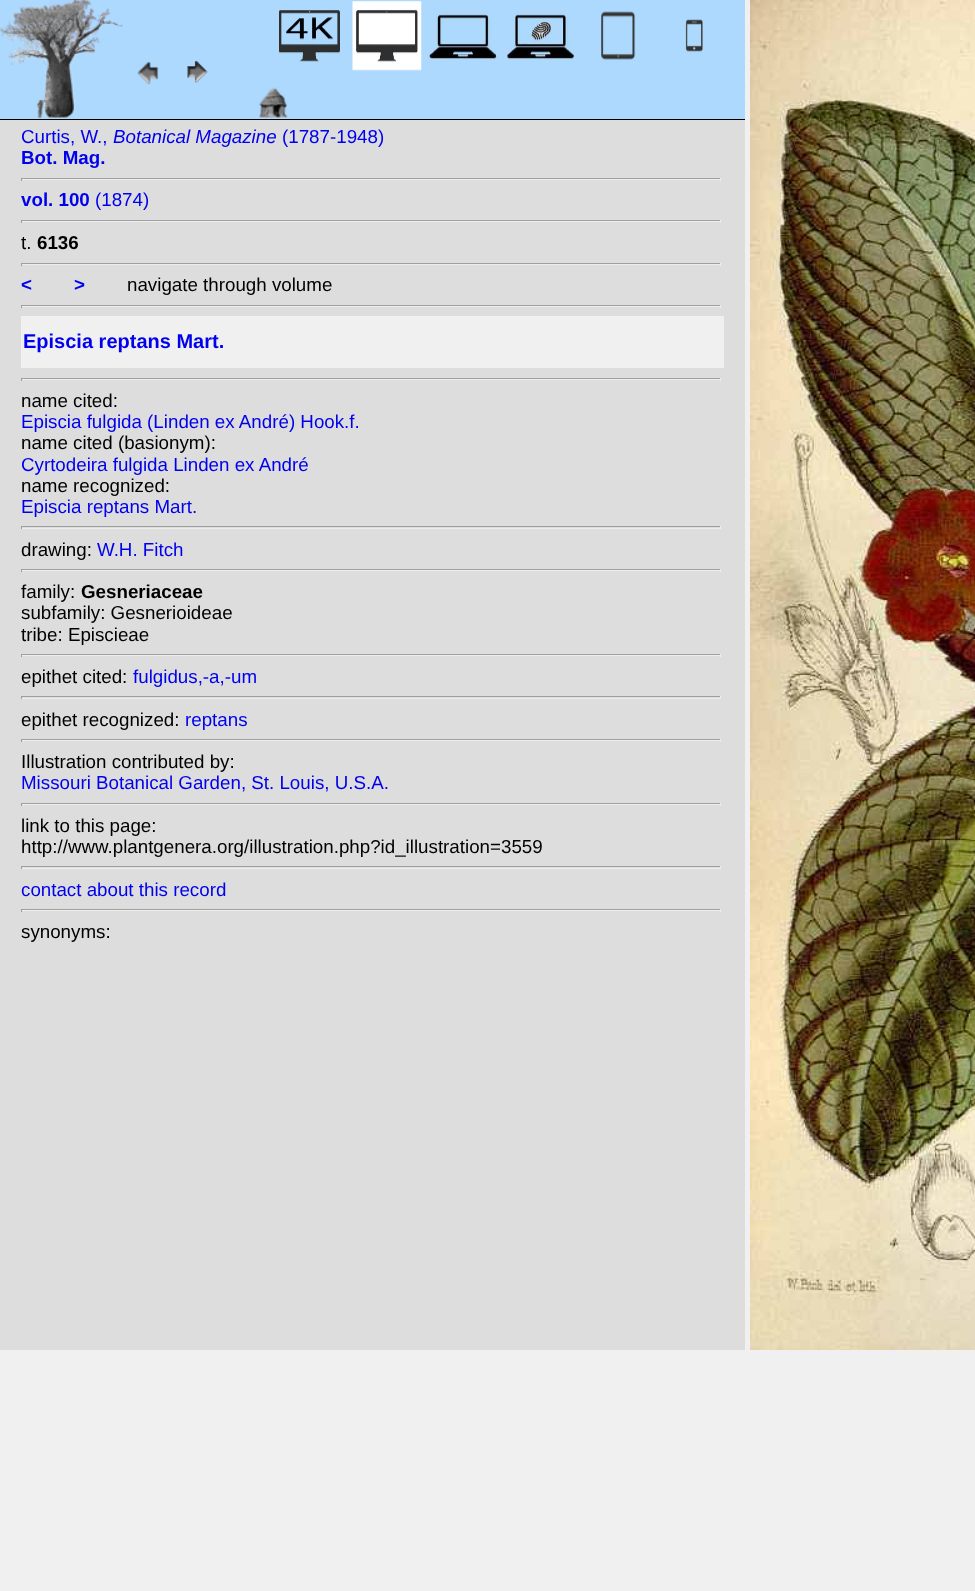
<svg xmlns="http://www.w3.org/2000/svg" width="975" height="1591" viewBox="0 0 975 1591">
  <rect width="100%" height="100%" fill="#f0f0f0"/>
  <rect x="0" y="120" width="745" height="1230" fill="#dddddd"/>
  <rect x="0" y="0" width="745" height="119" fill="#add9fe"/>
  <rect x="0" y="119" width="745" height="1" fill="#000000"/>
  <image x="0" y="0" width="123" height="118" href="img1.png"/>
  <image x="137" y="61" width="22" height="24" href="img2.png"/>
  <image x="187" y="61" width="21" height="22" href="img3.png"/>
  <image x="277" y="10" width="63" height="52" href="img4.png"/>
  <image x="352" y="1" width="70" height="70" href="img5.png"/>
  <image x="428" y="11" width="70" height="49" href="img6.png"/>
  <image x="506" y="11" width="69" height="49" href="img7.png"/>
  <image x="601" y="11" width="35" height="49" href="img8.png"/>
  <image x="685" y="19" width="18" height="33" href="img9.png"/>
  <image x="259" y="87" width="29" height="31" href="img10.png"/>
  <text x="21" y="143" font-family="Liberation Sans" font-size="18.75" fill="#0000ee">Curtis, W.,</text>
  <text x="113" y="143" font-family="Liberation Sans" font-size="18.75" font-style="italic" fill="#0000ee">Botanical Magazine</text>
  <text x="282" y="143" font-family="Liberation Sans" font-size="18.75" fill="#0000ee">(1787-1948)</text>
  <text x="21" y="164" font-family="Liberation Sans" font-size="18.75" font-weight="bold" fill="#0000ee">Bot. Mag.</text>
  <rect x="21" y="178" width="700" height="1" fill="#9f9f9f"/>
  <rect x="720" y="178" width="1" height="3" fill="#eeeeee"/>
  <rect x="21" y="179" width="700" height="1" fill="#eeeeee"/>
  <rect x="21" y="178" width="1" height="3" fill="#9f9f9f"/>
  <text x="21" y="206" font-family="Liberation Sans" font-size="18.75" font-weight="bold" fill="#0000ee">vol. 100</text>
  <text x="95" y="206" font-family="Liberation Sans" font-size="18.75" fill="#0000ee">(1874)</text>
  <rect x="21" y="220" width="700" height="1" fill="#9f9f9f"/>
  <rect x="720" y="220" width="1" height="3" fill="#eeeeee"/>
  <rect x="21" y="221" width="700" height="1" fill="#eeeeee"/>
  <rect x="21" y="220" width="1" height="3" fill="#9f9f9f"/>
  <text x="21" y="249" font-family="Liberation Sans" font-size="18.75" fill="#000000">t.</text>
  <text x="37" y="249" font-family="Liberation Sans" font-size="18.75" font-weight="bold" fill="#000000">6136</text>
  <rect x="21" y="263" width="700" height="1" fill="#9f9f9f"/>
  <rect x="720" y="263" width="1" height="3" fill="#eeeeee"/>
  <rect x="21" y="264" width="700" height="1" fill="#eeeeee"/>
  <rect x="21" y="263" width="1" height="3" fill="#9f9f9f"/>
  <text x="21" y="291" font-family="Liberation Sans" font-size="18.75" font-weight="bold" fill="#0000ee">&lt;</text>
  <text x="74" y="291" font-family="Liberation Sans" font-size="18.75" font-weight="bold" fill="#0000ee">&gt;</text>
  <text x="127" y="291" font-family="Liberation Sans" font-size="18.75" fill="#000000">navigate through volume</text>
  <rect x="21" y="305" width="700" height="1" fill="#9f9f9f"/>
  <rect x="720" y="305" width="1" height="3" fill="#eeeeee"/>
  <rect x="21" y="306" width="700" height="1" fill="#eeeeee"/>
  <rect x="21" y="305" width="1" height="3" fill="#9f9f9f"/>
  <rect x="21" y="316" width="703" height="52" fill="#f0f0f0"/>
  <text x="23" y="348" font-family="Liberation Sans" font-size="20" font-weight="bold" fill="#0000ee">Episcia reptans Mart.</text>
  <rect x="21" y="378" width="700" height="1" fill="#9f9f9f"/>
  <rect x="720" y="378" width="1" height="3" fill="#eeeeee"/>
  <rect x="21" y="379" width="700" height="1" fill="#eeeeee"/>
  <rect x="21" y="378" width="1" height="3" fill="#9f9f9f"/>
  <text x="21" y="407" font-family="Liberation Sans" font-size="18.75" fill="#000000">name cited:</text>
  <text x="21" y="428" font-family="Liberation Sans" font-size="18.75" fill="#0000ee">Episcia fulgida (Linden ex André) Hook.f.</text>
  <text x="21" y="449" font-family="Liberation Sans" font-size="18.75" fill="#000000">name cited (basionym):</text>
  <text x="21" y="471" font-family="Liberation Sans" font-size="18.75" fill="#0000ee">Cyrtodeira fulgida Linden ex André</text>
  <text x="21" y="492" font-family="Liberation Sans" font-size="18.75" fill="#000000">name recognized:</text>
  <text x="21" y="513" font-family="Liberation Sans" font-size="18.75" fill="#0000ee">Episcia reptans Mart.</text>
  <rect x="21" y="526" width="700" height="1" fill="#9f9f9f"/>
  <rect x="720" y="526" width="1" height="3" fill="#eeeeee"/>
  <rect x="21" y="528" width="700" height="1" fill="#eeeeee"/>
  <rect x="21" y="526" width="1" height="3" fill="#9f9f9f"/>
  <text x="21" y="556" font-family="Liberation Sans" font-size="18.75" fill="#000000">drawing:</text>
  <text x="97" y="556" font-family="Liberation Sans" font-size="18.75" fill="#0000ee">W.H. Fitch</text>
  <rect x="21" y="569" width="700" height="1" fill="#9f9f9f"/>
  <rect x="720" y="569" width="1" height="3" fill="#eeeeee"/>
  <rect x="21" y="570" width="700" height="1" fill="#eeeeee"/>
  <rect x="21" y="569" width="1" height="3" fill="#9f9f9f"/>
  <text x="21" y="598" font-family="Liberation Sans" font-size="18.75" fill="#000000">family:</text>
  <text x="81" y="598" font-family="Liberation Sans" font-size="18.75" font-weight="bold" fill="#000000">Gesneriaceae</text>
  <text x="21" y="619" font-family="Liberation Sans" font-size="18.75" fill="#000000">subfamily: Gesnerioideae</text>
  <text x="21" y="641" font-family="Liberation Sans" font-size="18.75" fill="#000000">tribe: Episcieae</text>
  <rect x="21" y="654" width="700" height="1" fill="#9f9f9f"/>
  <rect x="720" y="654" width="1" height="3" fill="#eeeeee"/>
  <rect x="21" y="655" width="700" height="1" fill="#eeeeee"/>
  <rect x="21" y="654" width="1" height="3" fill="#9f9f9f"/>
  <text x="21" y="683" font-family="Liberation Sans" font-size="18.75" fill="#000000">epithet cited:</text>
  <text x="133" y="683" font-family="Liberation Sans" font-size="18.75" fill="#0000ee">fulgidus,-a,-um</text>
  <rect x="21" y="696" width="700" height="1" fill="#9f9f9f"/>
  <rect x="720" y="696" width="1" height="3" fill="#eeeeee"/>
  <rect x="21" y="698" width="700" height="1" fill="#eeeeee"/>
  <rect x="21" y="696" width="1" height="3" fill="#9f9f9f"/>
  <text x="21" y="726" font-family="Liberation Sans" font-size="18.75" fill="#000000">epithet recognized:</text>
  <text x="185" y="726" font-family="Liberation Sans" font-size="18.75" fill="#0000ee">reptans</text>
  <rect x="21" y="739" width="700" height="1" fill="#9f9f9f"/>
  <rect x="720" y="739" width="1" height="3" fill="#eeeeee"/>
  <rect x="21" y="740" width="700" height="1" fill="#eeeeee"/>
  <rect x="21" y="739" width="1" height="3" fill="#9f9f9f"/>
  <text x="21" y="768" font-family="Liberation Sans" font-size="18.75" fill="#000000">Illustration contributed by:</text>
  <text x="21" y="789" font-family="Liberation Sans" font-size="18.75" fill="#0000ee">Missouri Botanical Garden, St. Louis, U.S.A.</text>
  <rect x="21" y="803" width="700" height="1" fill="#9f9f9f"/>
  <rect x="720" y="803" width="1" height="3" fill="#eeeeee"/>
  <rect x="21" y="804" width="700" height="1" fill="#eeeeee"/>
  <rect x="21" y="803" width="1" height="3" fill="#9f9f9f"/>
  <text x="21" y="832" font-family="Liberation Sans" font-size="18.75" fill="#000000">link to this page:</text>
  <text x="21" y="853" font-family="Liberation Sans" font-size="18.75" fill="#000000">http://www.plantgenera.org/illustration.php?id_illustration=3559</text>
  <rect x="21" y="866" width="700" height="1" fill="#9f9f9f"/>
  <rect x="720" y="866" width="1" height="3" fill="#eeeeee"/>
  <rect x="21" y="868" width="700" height="1" fill="#eeeeee"/>
  <rect x="21" y="866" width="1" height="3" fill="#9f9f9f"/>
  <text x="21" y="896" font-family="Liberation Sans" font-size="18.75" fill="#0000ee">contact about this record</text>
  <rect x="21" y="909" width="700" height="1" fill="#9f9f9f"/>
  <rect x="720" y="909" width="1" height="3" fill="#eeeeee"/>
  <rect x="21" y="910" width="700" height="1" fill="#eeeeee"/>
  <rect x="21" y="909" width="1" height="3" fill="#9f9f9f"/>
  <text x="21" y="938" font-family="Liberation Sans" font-size="18.75" fill="#000000">synonyms:</text>
  <image x="750" y="0" width="225" height="1350" href="img11.png"/>
</svg>
